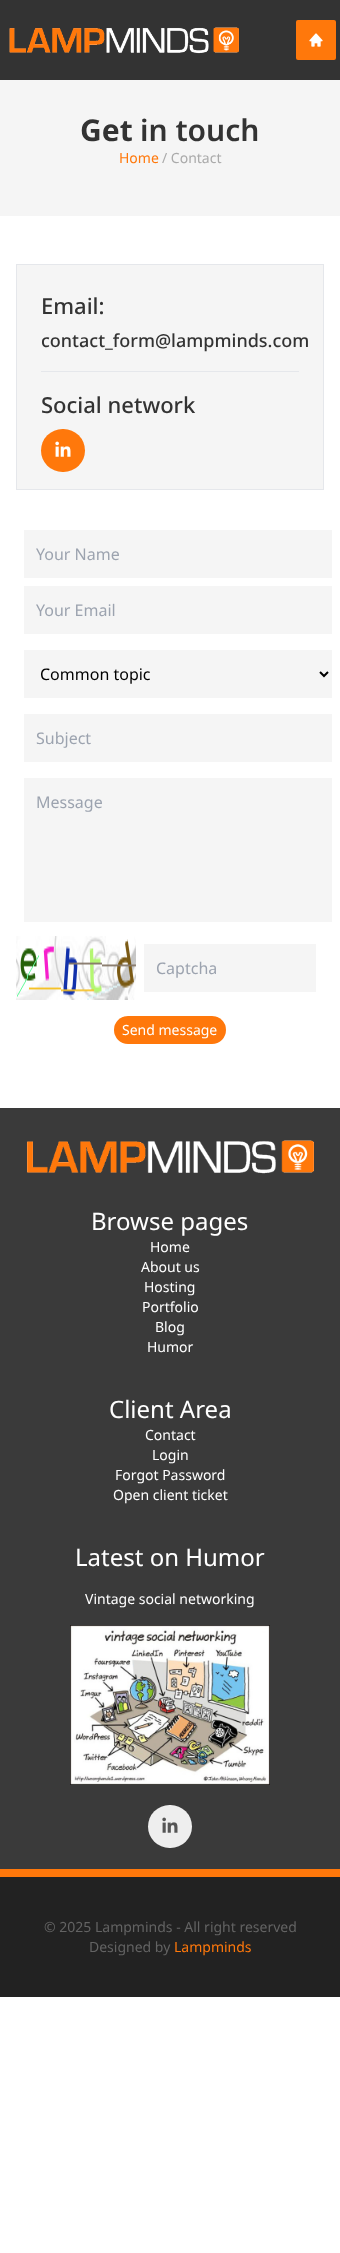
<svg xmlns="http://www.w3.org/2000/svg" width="340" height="2253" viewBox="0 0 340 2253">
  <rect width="100%" height="100%" fill="#ffffff"/>
  <rect x="0" y="0" width="340" height="80" fill="#333333"/>
  <image x="9" y="27" width="230" height="27" href="img1.png"/>
  <rect x="296" y="20" width="40" height="40" rx="2" fill="#ff780b"/>
  <image x="309" y="33" width="14" height="14" href="img2.png"/>
  <rect x="0" y="80" width="340" height="136" fill="#f5f5f5"/>
  <text x="80" y="141" font-family="Noto Sans" font-size="30" font-weight="bold" fill="#333333">Get</text>
  <text x="140" y="141" font-family="Noto Sans" font-size="30" font-weight="600" fill="#333333">in touch</text>
  <text x="119" y="163" font-family="Noto Sans" font-size="14" fill="#ff780b">Home</text>
  <text x="162" y="163" font-family="Noto Sans" font-size="14" fill="#aaaaaa">/ Contact</text>
  <rect x="16.5" y="264.5" width="307" height="225" fill="#f5f5f5" stroke="#e5e7eb"/>
  <text x="41" y="314" font-family="Noto Sans" font-size="22" font-weight="500" fill="#333333">Email:</text>
  <text x="41" y="347" font-family="Noto Sans" font-size="18" font-weight="500" fill="#333333">contact_form@lampminds.com</text>
  <rect x="41" y="371" width="258" height="1" fill="#e5e7eb"/>
  <text x="41" y="413" font-family="Noto Sans" font-size="22" font-weight="500" fill="#333333">Social network</text>
  <rect x="41" y="429" width="44" height="43" rx="21.5" fill="#ff780b"/>
  <image x="55" y="441" width="16" height="16" href="img3.png"/>
  <rect x="24" y="530" width="308" height="48" fill="#f5f5f5"/>
  <text x="36" y="560" font-family="Noto Sans" font-size="16" fill="#9ca3af">Your Name</text>
  <rect x="24" y="586" width="308" height="48" fill="#f5f5f5"/>
  <text x="36" y="616" font-family="Noto Sans" font-size="16" fill="#9ca3af">Your Email</text>
  <rect x="24" y="650" width="308" height="48" fill="#f5f5f5"/>
  <path d="M320 672L324 676L328 672" fill="none" stroke="#000000" stroke-width="2"/>
  <text x="40" y="680" font-family="Noto Sans" font-size="16" fill="#000000">Common topic</text>
  <rect x="24" y="714" width="308" height="48" fill="#f5f5f5"/>
  <text x="36" y="744" font-family="Noto Sans" font-size="16" fill="#9ca3af">Subject</text>
  <rect x="24" y="778" width="308" height="144" fill="#f5f5f5"/>
  <text x="36" y="808" font-family="Noto Sans" font-size="16" fill="#9ca3af">Message</text>
  <image x="16" y="936" width="120" height="64" href="img4.png"/>
  <rect x="144" y="944" width="172" height="48" fill="#f5f5f5"/>
  <text x="156" y="974" font-family="Noto Sans" font-size="16" fill="#9ca3af">Captcha</text>
  <rect x="114" y="1016" width="112" height="28" rx="14" fill="#ff780b"/>
  <text x="122" y="1035" font-family="Noto Sans" font-size="14" fill="#ffffff">Send message</text>
  <rect x="0" y="1108" width="340" height="761" fill="#3a3a3a"/>
  <image x="27" y="1140" width="287" height="34" href="img5.png"/>
  <text x="91" y="1230" font-family="Noto Sans" font-size="24" fill="#ffffff">Browse pages</text>
  <text x="150" y="1252" font-family="Noto Sans" font-size="14" fill="#ffffff">Home</text>
  <text x="141" y="1272" font-family="Noto Sans" font-size="14" fill="#ffffff">About us</text>
  <text x="144" y="1292" font-family="Noto Sans" font-size="14" fill="#ffffff">Hosting</text>
  <text x="142" y="1312" font-family="Noto Sans" font-size="14" fill="#ffffff">Portfolio</text>
  <text x="155" y="1332" font-family="Noto Sans" font-size="14" fill="#ffffff">Blog</text>
  <text x="147" y="1352" font-family="Noto Sans" font-size="14" fill="#ffffff">Humor</text>
  <text x="109" y="1418" font-family="Noto Sans" font-size="24" fill="#ffffff">Client Area</text>
  <text x="145" y="1440" font-family="Noto Sans" font-size="14" fill="#ffffff">Contact</text>
  <text x="152" y="1460" font-family="Noto Sans" font-size="14" fill="#ffffff">Login</text>
  <text x="115" y="1480" font-family="Noto Sans" font-size="14" fill="#ffffff">Forgot Password</text>
  <text x="113" y="1500" font-family="Noto Sans" font-size="14" fill="#ffffff">Open client ticket</text>
  <text x="75" y="1566" font-family="Noto Sans" font-size="24" fill="#ffffff">Latest on Humor</text>
  <text x="85" y="1604" font-family="Noto Sans" font-size="14" fill="#ffffff">Vintage social networking</text>
  <image x="70" y="1625" width="200" height="160" href="img6.png"/>
  <rect x="148" y="1805" width="44" height="43" rx="21.5" fill="#eeeeee"/>
  <image x="162" y="1817" width="16" height="16" href="img7.png"/>
  <rect x="0" y="1869" width="340" height="8" fill="#ff780b"/>
  <rect x="0" y="1877" width="340" height="120" fill="#222222"/>
  <text x="44" y="1932" font-family="Noto Sans" font-size="14" fill="#636363">© 2025 Lampminds - All right reserved</text>
  <text x="89" y="1952" font-family="Noto Sans" font-size="14" fill="#636363">Designed by</text>
  <text x="174" y="1952" font-family="Noto Sans" font-size="14" fill="#ff780b">Lampminds</text>
</svg>
